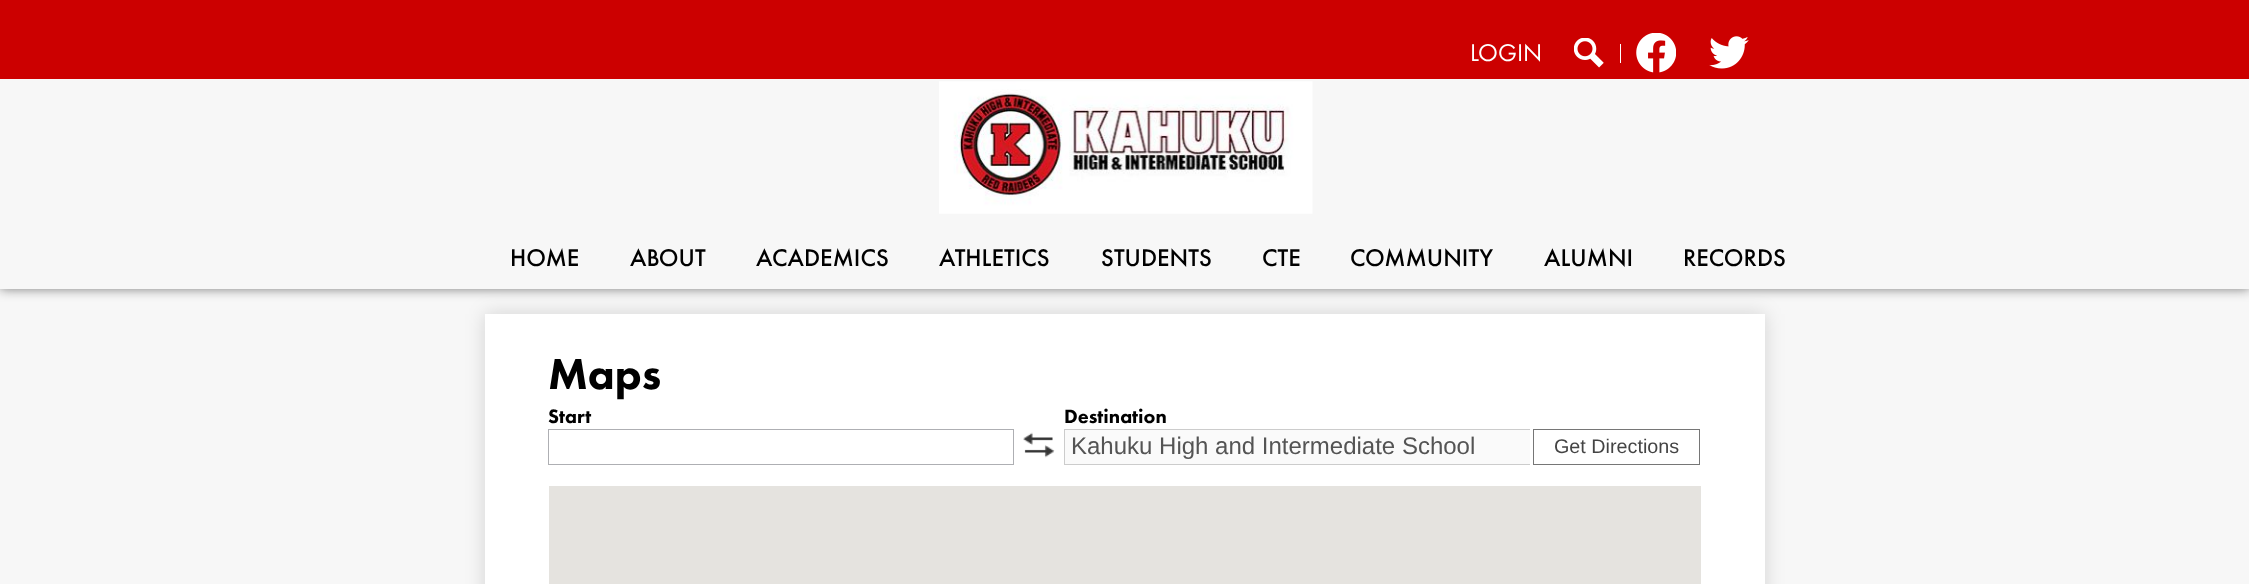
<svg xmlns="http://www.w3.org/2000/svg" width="2249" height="584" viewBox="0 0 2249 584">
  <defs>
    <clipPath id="clip1"><path d="M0 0H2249V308H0ZM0 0H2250V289H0Z" clip-rule="evenodd"/></clipPath>
    <filter id="blur1" x="-50%" y="-200%" width="200%" height="500%"><feGaussianBlur stdDeviation="6"/></filter>
    <filter id="blur2" x="-50%" y="-200%" width="200%" height="500%"><feGaussianBlur stdDeviation="9.5"/></filter>
  </defs>
  <rect width="100%" height="100%" fill="#f7f7f7"/>
  <g clip-path="url(#clip1)">
    <rect x="0" y="0" width="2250" height="289" fill="#000000" fill-opacity="0.5" filter="url(#blur1)"/>
  </g>
  <rect x="0" y="0" width="2249" height="79" fill="#cc0000"/>
  <text x="1470" y="61" font-family="Futura PT" font-size="25" fill="#ffffff">LOGIN</text>
  <image x="1574" y="38" width="30" height="30" href="img1.png"/>
  <rect x="1620" y="44" width="1" height="19" fill="#ffffff"/>
  <image x="1636" y="33" width="40" height="40" href="img2.png"/>
  <image x="1709" y="36" width="40" height="33" href="img3.png"/>
  <image x="939" y="81" width="374" height="133" href="img4.png"/>
  <text x="510" y="266" font-family="Futura PT" font-size="25" font-weight="500" fill="#000000">HOME</text>
  <text x="630" y="266" font-family="Futura PT" font-size="25" font-weight="500" fill="#000000">ABOUT</text>
  <text x="756" y="266" font-family="Futura PT" font-size="25" font-weight="500" fill="#000000">ACADEMICS</text>
  <text x="939" y="266" font-family="Futura PT" font-size="25" font-weight="500" fill="#000000">ATHLETICS</text>
  <text x="1101" y="266" font-family="Futura PT" font-size="25" font-weight="500" fill="#000000">STUDENTS</text>
  <text x="1262" y="266" font-family="Futura PT" font-size="25" font-weight="500" fill="#000000">CTE</text>
  <text x="1350" y="266" font-family="Futura PT" font-size="25" font-weight="500" fill="#000000">COMMUNITY</text>
  <text x="1544" y="266" font-family="Futura PT" font-size="25" font-weight="500" fill="#000000">ALUMNI</text>
  <text x="1683" y="266" font-family="Futura PT" font-size="25" font-weight="500" fill="#000000">RECORDS</text>
  <rect x="485" y="314" width="1280" height="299" fill="#000000" fill-opacity="0.15" filter="url(#blur2)"/>
  <rect x="485" y="314" width="1280" height="270" fill="#ffffff"/>
  <text x="548" y="389" font-family="Futura PT" font-size="45" font-weight="900" fill="#000000">Maps</text>
  <text x="548" y="423" font-family="Futura PT" font-size="20" font-weight="900" fill="#000000">Start</text>
  <rect x="548.5" y="429.5" width="465" height="35" fill="none" stroke="#aeafb3"/>
  <text x="1064" y="423" font-family="Futura PT" font-size="20" font-weight="900" fill="#000000">Destination</text>
  <rect x="1065" y="430" width="465" height="34" fill="#fafafa"/>
  <rect x="1064" y="429" width="466" height="1" fill="#cccccc"/>
  <rect x="1064" y="464" width="466" height="1" fill="#cccccc"/>
  <rect x="1064" y="429" width="1" height="36" fill="#cccccc"/>
  <text x="1071" y="454" font-family="Liberation Sans" font-size="24" fill="#545454">Kahuku High and Intermediate School</text>
  <image x="1023" y="432" width="32" height="26" href="img5.png"/>
  <rect x="1533.5" y="429.5" width="166" height="35" fill="none" stroke="#767676"/>
  <text x="1554" y="453" font-family="Liberation Sans" font-size="19.75" fill="#444444">Get Directions</text>
  <rect x="549" y="486" width="1152" height="98" fill="#e5e3df"/>
</svg>
